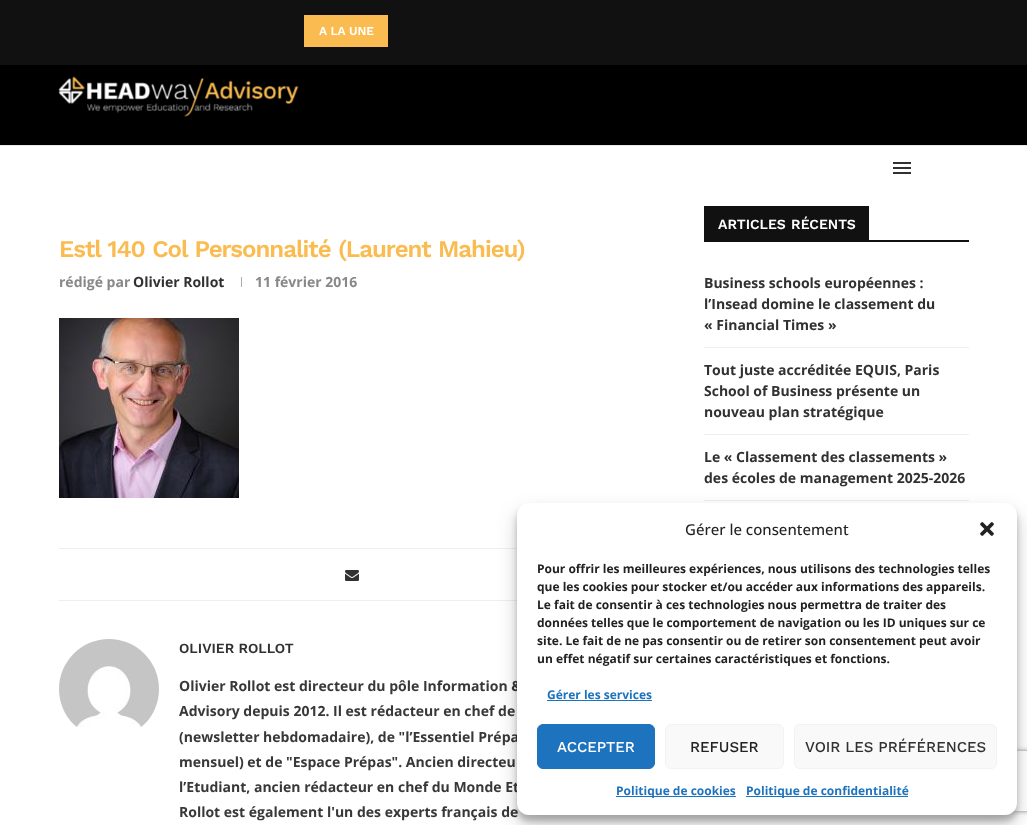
<svg xmlns="http://www.w3.org/2000/svg" width="1027" height="825" viewBox="0 0 1027 825">
  <defs>
    <filter id="blur1" x="-50%" y="-200%" width="200%" height="500%"><feGaussianBlur stdDeviation="3"/></filter>
    <filter id="blur2" x="-50%" y="-200%" width="200%" height="500%"><feGaussianBlur stdDeviation="10"/></filter>
    <clipPath id="clip1"><path d="M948 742H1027V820H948ZM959 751H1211C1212 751 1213 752 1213 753V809C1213 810 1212 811 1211 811H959C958 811 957 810 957 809V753C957 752 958 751 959 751Z" clip-rule="evenodd"/></clipPath>
    <filter id="blur3" x="-50%" y="-200%" width="200%" height="500%"><feGaussianBlur stdDeviation="2.5"/></filter>
  </defs>
  <rect width="100%" height="100%" fill="#ffffff"/>
  <rect x="0" y="0" width="1027" height="65" fill="#111111"/>
  <rect x="304" y="15" width="84" height="32" fill="#fabc51"/>
  <text x="319" y="35" font-family="Work Sans" font-size="12" font-weight="600" fill="#ffffff">A LA UNE</text>
  <rect x="0" y="65" width="1027" height="80" fill="#000000"/>
  <rect x="0" y="145" width="1027" height="1" fill="#ececec"/>
  <image x="58" y="76" width="241" height="41" href="img1.png"/>
  <rect x="893" y="162" width="18" height="2" fill="#313131"/>
  <rect x="893" y="172" width="18" height="2" fill="#313131"/>
  <rect x="893" y="167" width="18" height="2" fill="#313131"/>
  <text x="59" y="257" word-spacing="1" font-family="Work Sans" font-size="24" font-weight="600" letter-spacing="-1" fill="#fabc51">Estl 140 Col Personnalité (Laurent Mahieu)</text>
  <text x="59" y="287" font-family="Open Sans" font-size="14" font-weight="bold" fill="#888888">rédigé par</text>
  <text x="133" y="287" font-family="Open Sans" font-size="14" font-weight="bold" fill="#313131">Olivier Rollot</text>
  <rect x="241" y="277" width="1" height="10" fill="#acacac"/>
  <text x="255" y="287" font-family="Open Sans" font-size="14" font-weight="bold" fill="#888888">11 février 2016</text>
  <image x="59" y="318" width="180" height="180" href="img2.png"/>
  <rect x="59" y="548" width="458" height="1" fill="#eeeeee"/>
  <image x="345" y="570" width="14" height="11" href="img3.png"/>
  <rect x="59" y="600" width="458" height="1" fill="#eeeeee"/>
  <image x="59" y="639" width="100" height="88" href="img4.png"/>
  <text x="179" y="653" font-family="Work Sans" font-size="14" font-weight="600" fill="#313131">OLIVIER ROLLOT</text>
  <text x="179" y="691" font-family="Open Sans" font-size="14" font-weight="bold" fill="#383838">Olivier Rollot est directeur du pôle Information &amp;</text>
  <text x="179" y="716" font-family="Open Sans" font-size="14" font-weight="bold" fill="#383838">Advisory depuis 2012. Il est rédacteur en chef de</text>
  <text x="179" y="742" font-family="Open Sans" font-size="14" font-weight="bold" fill="#383838">(newsletter hebdomadaire), de "l’Essentiel Prépa</text>
  <text x="179" y="767" font-family="Open Sans" font-size="14" font-weight="bold" fill="#383838">mensuel) et de "Espace Prépas". Ancien directeu</text>
  <text x="179" y="792" font-family="Open Sans" font-size="14" font-weight="bold" fill="#383838">l’Etudiant, ancien rédacteur en chef du Monde Et</text>
  <text x="179" y="817" font-family="Open Sans" font-size="14" font-weight="bold" fill="#383838">Rollot est également l'un des experts français de</text>
  <rect x="704" y="240" width="265" height="2" fill="#111111"/>
  <rect x="706" y="207" width="162" height="33" fill="#111111"/>
  <rect x="704" y="206" width="165" height="1" fill="#111111"/>
  <rect x="868" y="206" width="1" height="36" fill="#111111"/>
  <rect x="704" y="206" width="2" height="36" fill="#111111"/>
  <text x="718" y="229" word-spacing="1" font-family="Work Sans" font-size="14" font-weight="600" fill="#ffffff">ARTICLES RÉCENTS</text>
  <rect x="704" y="347" width="265" height="1" fill="#eeeeee"/>
  <text x="704" y="288" font-family="Open Sans" font-size="14" font-weight="bold" fill="#313131">Business schools européennes :</text>
  <text x="704" y="309" font-family="Open Sans" font-size="14" font-weight="bold" fill="#313131">l’Insead domine le classement du</text>
  <text x="704" y="330" font-family="Open Sans" font-size="14" font-weight="bold" fill="#313131">« Financial Times »</text>
  <rect x="704" y="434" width="265" height="1" fill="#eeeeee"/>
  <text x="704" y="375" font-family="Open Sans" font-size="14" font-weight="bold" fill="#313131">Tout juste accréditée EQUIS, Paris</text>
  <text x="704" y="396" font-family="Open Sans" font-size="14" font-weight="bold" fill="#313131">School of Business présente un</text>
  <text x="704" y="417" font-family="Open Sans" font-size="14" font-weight="bold" fill="#313131">nouveau plan stratégique</text>
  <rect x="704" y="500" width="265" height="1" fill="#eeeeee"/>
  <text x="704" y="462" font-family="Open Sans" font-size="14" font-weight="bold" fill="#313131">Le « Classement des classements »</text>
  <text x="704" y="483" font-family="Open Sans" font-size="14" font-weight="bold" fill="#313131">des écoles de management 2025-2026</text>
  <rect x="517" y="509" width="500" height="312" rx="12" fill="#000000" fill-opacity="0.23" filter="url(#blur1)"/>
  <rect x="517" y="513" width="500" height="312" rx="12" fill="#000000" fill-opacity="0.19" filter="url(#blur2)"/>
  <g clip-path="url(#clip1)">
    <rect x="957" y="751" width="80" height="60" rx="2" fill="#808080" filter="url(#blur3)"/>
  </g>
  <rect x="517" y="503" width="500" height="312" rx="12" fill="#ffffff"/>
  <text x="685" y="535" font-family="Open Sans" font-size="15" font-weight="500" fill="#222222">Gérer le consentement</text>
  <image x="980" y="522" width="14" height="14" href="img5.png"/>
  <text x="537" y="573" font-family="Open Sans" font-size="12" font-weight="bold" fill="#222222">Pour offrir les meilleures expériences, nous utilisons des technologies telles</text>
  <text x="537" y="591" font-family="Open Sans" font-size="12" font-weight="bold" fill="#222222">que les cookies pour stocker et/ou accéder aux informations des appareils.</text>
  <text x="537" y="609" font-family="Open Sans" font-size="12" font-weight="bold" fill="#222222">Le fait de consentir à ces technologies nous permettra de traiter des</text>
  <text x="537" y="627" font-family="Open Sans" font-size="12" font-weight="bold" fill="#222222">données telles que le comportement de navigation ou les ID uniques sur ce</text>
  <text x="537" y="645" font-family="Open Sans" font-size="12" font-weight="bold" fill="#222222">site. Le fait de ne pas consentir ou de retirer son consentement peut avoir</text>
  <text x="537" y="663" font-family="Open Sans" font-size="12" font-weight="bold" fill="#222222">un effet négatif sur certaines caractéristiques et fonctions.</text>
  <text x="547" y="699" font-family="Open Sans" font-size="12" font-weight="bold" fill="#1e73be">Gérer les services</text>
  <rect x="547" y="700" width="105" height="1" fill="#1e73be"/>
  <rect x="537.5" y="724.5" width="117" height="44" rx="5.5" fill="#1e73be" stroke="#1e73be"/>
  <text x="557" y="752" font-family="Work Sans" font-size="15" font-weight="500" fill="#ffffff">ACCEPTER</text>
  <rect x="665.5" y="724.5" width="118" height="44" rx="5.5" fill="#f9f9f9" stroke="#f2f2f2"/>
  <text x="690" y="752" font-family="Work Sans" font-size="15" font-weight="500" fill="#222222">REFUSER</text>
  <rect x="794.5" y="724.5" width="202" height="44" rx="5.5" fill="#f9f9f9" stroke="#f2f2f2"/>
  <text x="805" y="752" font-family="Work Sans" font-size="15" font-weight="500" fill="#313131">VOIR LES PRÉFÉRENCES</text>
  <rect x="616" y="796" width="120" height="1" fill="#1e73be"/>
  <text x="616" y="795" font-family="Open Sans" font-size="12" font-weight="bold" fill="#1e73be">Politique de cookies</text>
  <rect x="746" y="796" width="162" height="1" fill="#1e73be"/>
  <text x="746" y="795" font-family="Open Sans" font-size="12" font-weight="bold" fill="#1e73be">Politique de confidentialité</text>
</svg>
